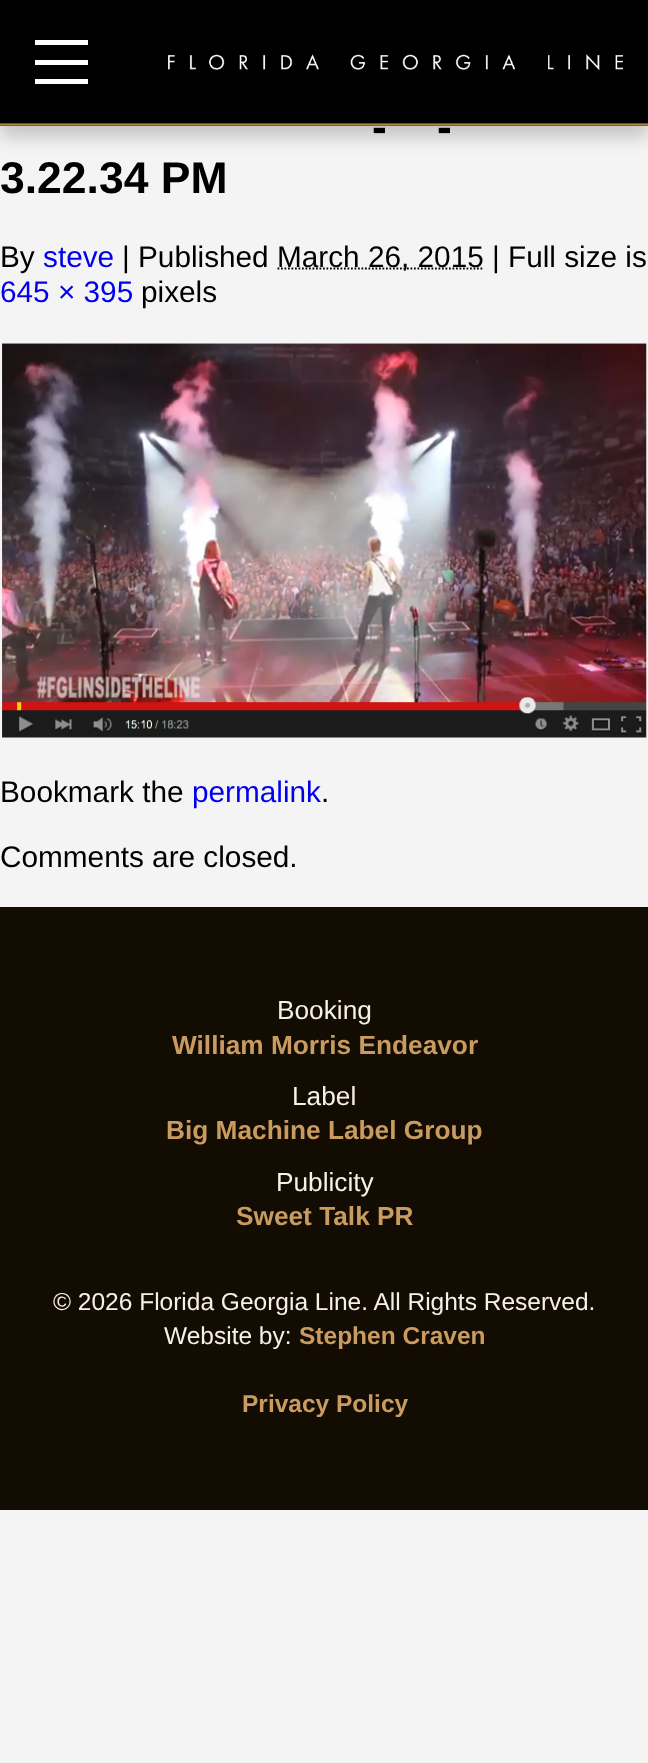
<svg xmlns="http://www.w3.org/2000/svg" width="648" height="1763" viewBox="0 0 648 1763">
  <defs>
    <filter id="blur1" x="-50%" y="-200%" width="200%" height="500%"><feGaussianBlur stdDeviation="9"/></filter>
  </defs>
  <rect width="100%" height="100%" fill="#f4f4f4"/>
  <rect x="0" y="11" width="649" height="126" fill="#000000" fill-opacity="0.2" filter="url(#blur1)"/>
  <rect x="0" y="0" width="648" height="124" fill="#000000"/>
  <rect x="0" y="124" width="648" height="2" fill="#7e622f"/>
  <rect x="35" y="40" width="53" height="5" fill="#ffffff"/>
  <rect x="35" y="60" width="53" height="5" fill="#ffffff"/>
  <rect x="35" y="79" width="53" height="5" fill="#ffffff"/>
  <image x="168" y="54" width="455" height="16" href="img1.png"/>
  <rect x="0" y="123" width="648" height="2" fill="#fcc35d" fill-opacity="0.4"/>
  <text x="372" y="142" font-family="Liberation Sans" font-size="44.5" font-weight="bold" fill="#000000">-</text>
  <text x="437" y="142" font-family="Liberation Sans" font-size="44.5" font-weight="bold" fill="#000000">-</text>
  <text x="0" y="193" font-family="Liberation Sans" font-size="44.5" font-weight="bold" fill="#000000">3.22.34 PM</text>
  <text x="0" y="267" font-family="Liberation Sans" font-size="29.75" fill="#000000">By</text>
  <text x="43" y="267" font-family="Liberation Sans" font-size="29.75" fill="#0000ee">steve</text>
  <text x="122" y="267" font-family="Liberation Sans" font-size="29.75" fill="#000000">| Published</text>
  <path d="M277.5 268.5H484" fill="none" stroke="#000000" stroke-width="1.8" stroke-dasharray="1.75 1.75"/>
  <text x="277" y="267" font-family="Liberation Sans" font-size="29.75" fill="#000000">March 26, 2015 | Full size is</text>
  <text x="0" y="302" font-family="Liberation Sans" font-size="29.75" fill="#0000ee">645 × 395</text>
  <text x="141" y="302" font-family="Liberation Sans" font-size="29.75" fill="#000000">pixels</text>
  <image x="2" y="343" width="645" height="395" href="img2.png"/>
  <text x="0" y="802" font-family="Liberation Sans" font-size="29.75" fill="#000000">Bookmark the</text>
  <text x="192" y="802" font-family="Liberation Sans" font-size="29.75" fill="#0000ee">permalink</text>
  <text x="321" y="802" font-family="Liberation Sans" font-size="29.75" fill="#000000">.</text>
  <text x="0" y="867" font-family="Liberation Sans" font-size="29.75" fill="#000000">Comments are closed.</text>
  <rect x="0" y="907" width="648" height="603" fill="#130c02"/>
  <text x="277" y="1019" font-family="Liberation Sans" font-size="26.25" fill="#f7f0e9">Booking</text>
  <text x="172" y="1054" font-family="Liberation Sans" font-size="26.25" font-weight="bold" fill="#ca9b5f">William Morris Endeavor</text>
  <text x="292" y="1105" font-family="Liberation Sans" font-size="26.25" fill="#f7f0e9">Label</text>
  <text x="166" y="1139" font-family="Liberation Sans" font-size="26.25" font-weight="bold" fill="#ca9b5f">Big Machine Label Group</text>
  <text x="276" y="1191" font-family="Liberation Sans" font-size="26.25" fill="#f7f0e9">Publicity</text>
  <text x="236" y="1225" font-family="Liberation Sans" font-size="26.25" font-weight="bold" fill="#ca9b5f">Sweet Talk PR</text>
  <text x="53" y="1310" font-family="Liberation Sans" font-size="24.5" fill="#f7f0e9">© 2026 Florida Georgia Line. All Rights Reserved.</text>
  <text x="164" y="1344" font-family="Liberation Sans" font-size="24.5" fill="#f7f0e9">Website by:</text>
  <text x="299" y="1344" font-family="Liberation Sans" font-size="24.5" font-weight="bold" fill="#ca9b5f">Stephen Craven</text>
  <text x="242" y="1412" font-family="Liberation Sans" font-size="24.5" font-weight="bold" fill="#ca9b5f">Privacy Policy</text>
</svg>
